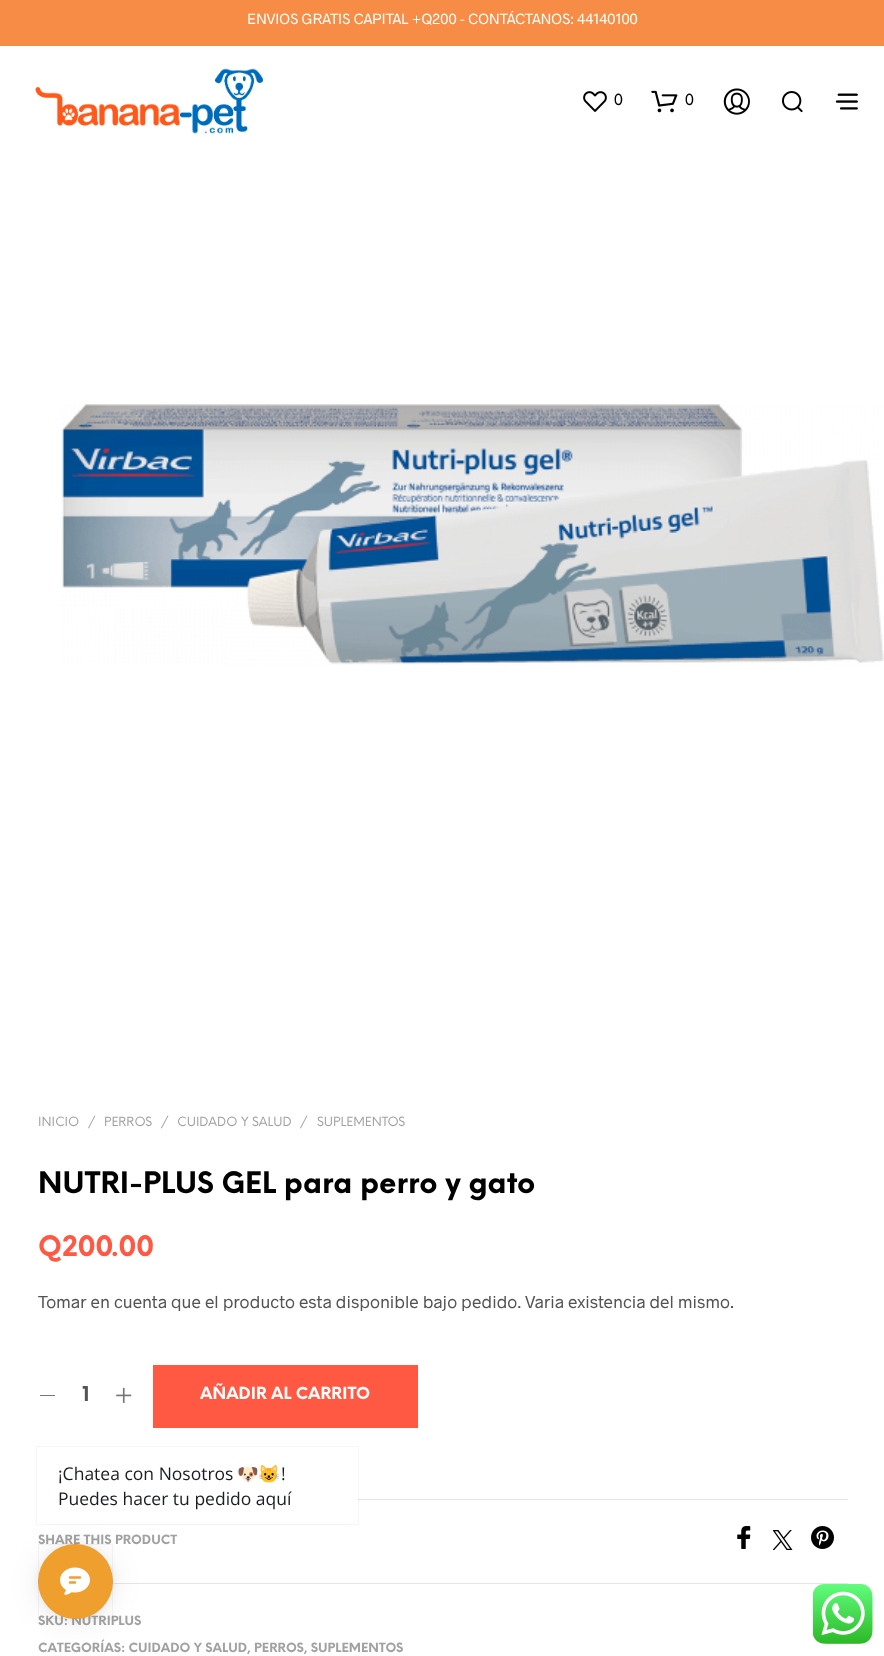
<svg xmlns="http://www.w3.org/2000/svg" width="884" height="1656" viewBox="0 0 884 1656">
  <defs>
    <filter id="blur1" x="-50%" y="-200%" width="200%" height="500%"><feGaussianBlur stdDeviation="15"/></filter>
    <filter id="blur2" x="-50%" y="-200%" width="200%" height="500%"><feGaussianBlur stdDeviation="4"/></filter>
  </defs>
  <rect width="100%" height="100%" fill="#ffffff"/>
  <rect x="0" y="0" width="884" height="46" fill="#f68c46"/>
  <text x="247" y="24" font-family="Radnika" font-size="15" fill="#ffffff">ENVIOS GRATIS CAPITAL +Q200 - CONTÁCTANOS: 44140100</text>
  <image x="35" y="68" width="228" height="66" href="img1.png"/>
  <image x="583" y="91" width="24" height="21" href="img2.png"/>
  <text x="614" y="105" font-family="Radnika" font-size="16.25" fill="#000000">0</text>
  <image x="651" y="90" width="27" height="23" href="img3.png"/>
  <text x="685" y="105" font-family="Radnika" font-size="16.25" fill="#000000">0</text>
  <image x="723" y="88" width="27" height="27" href="img4.png"/>
  <image x="782" y="91" width="21" height="22" href="img5.png"/>
  <image x="835" y="93" width="23" height="17" href="img6.png"/>
  <image x="61" y="404" width="823" height="261" href="img7.png"/>
  <text x="38" y="1126" font-family="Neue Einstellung" font-size="12.5" fill="#a1a1a1">INICIO</text>
  <text x="88" y="1126" font-family="Neue Einstellung" font-size="12.5" fill="#a1a1a1">/</text>
  <text x="104" y="1126" font-family="Neue Einstellung" font-size="12.5" fill="#a1a1a1">PERROS</text>
  <text x="161" y="1126" font-family="Neue Einstellung" font-size="12.5" fill="#a1a1a1">/</text>
  <text x="177" y="1126" font-family="Neue Einstellung" font-size="12.5" fill="#a1a1a1">CUIDADO Y SALUD</text>
  <text x="300" y="1126" font-family="Neue Einstellung" font-size="12.5" fill="#a1a1a1">/</text>
  <text x="317" y="1126" font-family="Neue Einstellung" font-size="12.5" fill="#a1a1a1">SUPLEMENTOS</text>
  <text x="38" y="1193" font-family="Neue Einstellung" font-size="28.9" font-weight="bold" fill="#000000">NUTRI-PLUS GEL para perro y gato</text>
  <text x="38" y="1256" font-family="Neue Einstellung" font-size="27.5" font-weight="bold" fill="#ff5943">Q200.00</text>
  <text x="38" y="1308" font-family="Radnika" font-size="17.5" fill="#545454">Tomar en cuenta que el producto esta disponible bajo pedido. Varia existencia del mismo.</text>
  <rect x="40" y="1395" width="15" height="1" fill="#767676"/>
  <text x="82" y="1401" font-family="Neue Einstellung" font-size="20" font-weight="bold" fill="#545454">1</text>
  <image x="116" y="1387" width="16" height="16" href="img8.png"/>
  <rect x="153" y="1365" width="265" height="63" fill="#ff5943"/>
  <text x="200" y="1399" font-family="Neue Einstellung" font-size="16.25" font-weight="bold" fill="#ffffff">AÑADIR AL CARRITO</text>
  <rect x="358" y="1499" width="490" height="1" fill="#e5e5e5"/>
  <text x="38" y="1544" font-family="Neue Einstellung" font-size="12.5" font-weight="bold" fill="#a1a1a1">SHARE THIS PRODUCT</text>
  <image x="737" y="1526" width="14" height="23" href="img9.png"/>
  <image x="773" y="1530" width="20" height="20" href="img10.png"/>
  <image x="811" y="1526" width="23" height="23" href="img11.png"/>
  <rect x="38" y="1583" width="810" height="1" fill="#e5e5e5"/>
  <text x="38" y="1625" font-family="Neue Einstellung" font-size="12.5" font-weight="bold" fill="#a1a1a1">SKU: NUTRIPLUS</text>
  <text x="38" y="1652" font-family="Neue Einstellung" font-size="12.5" font-weight="bold" fill="#a1a1a1">CATEGORÍAS: CUIDADO Y SALUD, PERROS, SUPLEMENTOS</text>
  <rect x="38" y="1546" width="75" height="75" rx="37.5" fill="#000000" fill-opacity="0.08" filter="url(#blur1)"/>
  <path d="M39 1518C42 1522 46 1525 51 1525H345C352 1525 358 1519 358 1512V1462L357 1458L358 1511C358 1518 352 1524 345 1524H50C46 1524 42 1521 39 1518Z" fill="#fafafa"/>
  <rect x="36.5" y="1446.5" width="322" height="78" fill="none" stroke="#161a1e" stroke-opacity="0.04"/>
  <rect x="38" y="1448" width="320" height="76" rx="13" fill="#ffffff"/>
  <text x="58" y="1480" font-family="Open Sans" font-size="17.5" fill="#1a1e23">¡Chatea con Nosotros</text>
  <text x="237" y="1480" font-family="Noto Color Emoji" font-size="17.5" fill="#1a1e23">🐶😺</text>
  <text x="281" y="1480" font-family="Open Sans" font-size="17.5" fill="#1a1e23">!</text>
  <text x="58" y="1505" font-family="Open Sans" font-size="17.5" fill="#1a1e23">Puedes hacer tu pedido aquí</text>
  <rect x="38" y="1545" width="75" height="75" rx="37.5" fill="#000000" fill-opacity="0.06" filter="url(#blur2)"/>
  <circle cx="75.5" cy="1581.5" r="37.5" fill="#ee9f2d"/>
  <rect x="38.5" y="1544.5" width="74" height="74" fill="none" stroke="#000000" stroke-opacity="0.04"/>
  <image x="60" y="1567" width="30" height="28" href="img12.png"/>
  <image x="813" y="1584" width="60" height="60" href="img13.png"/>
</svg>
